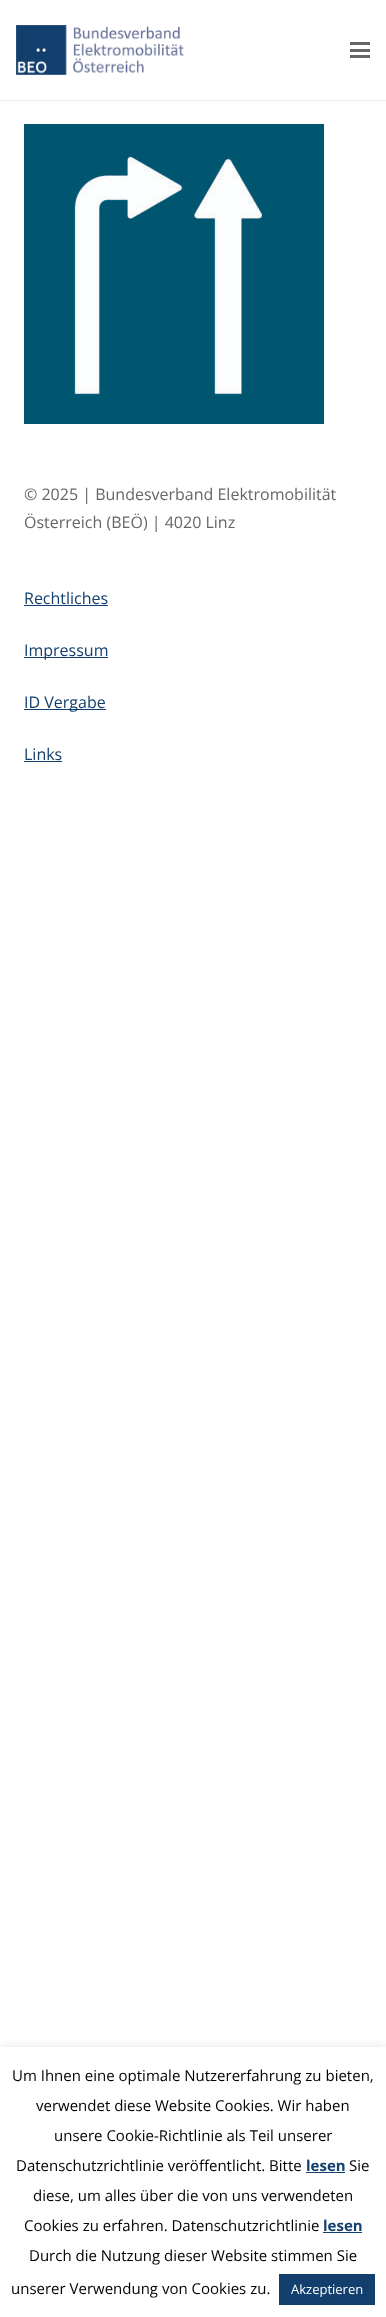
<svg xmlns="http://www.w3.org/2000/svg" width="386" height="2317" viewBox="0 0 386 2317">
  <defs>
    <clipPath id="clip1"><rect x="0" y="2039" width="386" height="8"/></clipPath>
    <filter id="blur1" x="-50%" y="-200%" width="200%" height="500%"><feGaussianBlur stdDeviation="5"/></filter>
  </defs>
  <rect width="100%" height="100%" fill="#ffffff"/>
  <rect x="0" y="100" width="386" height="1" fill="#ebebeb"/>
  <image x="16" y="25" width="168" height="50" href="img1.png"/>
  <rect x="350" y="49" width="20" height="3" fill="#666666"/>
  <rect x="350" y="42" width="20" height="3" fill="#666666"/>
  <rect x="350" y="55" width="20" height="3" fill="#666666"/>
  <image x="24" y="124" width="300" height="300" href="img2.png"/>
  <text x="24" y="500" font-family="Open Sans" font-size="16" fill="#666666">© 2025 | Bundesverband Elektromobilität</text>
  <text x="24" y="528" font-family="Open Sans" font-size="16" fill="#666666">Österreich (BEÖ) | 4020 Linz</text>
  <text x="24" y="604" font-family="Open Sans" font-size="16" fill="#123f6d">Rechtliches</text>
  <rect x="24" y="605" width="84" height="1" fill="#123f6d"/>
  <rect x="24" y="657" width="84" height="1" fill="#123f6d"/>
  <text x="24" y="656" font-family="Open Sans" font-size="16" fill="#123f6d">Impressum</text>
  <rect x="24" y="709" width="82" height="1" fill="#123f6d"/>
  <text x="24" y="708" font-family="Open Sans" font-size="16" fill="#123f6d">ID Vergabe</text>
  <text x="24" y="760" font-family="Open Sans" font-size="16" fill="#123f6d">Links</text>
  <rect x="24" y="761" width="38" height="1" fill="#123f6d"/>
  <g clip-path="url(#clip1)">
    <rect x="0" y="2046" width="386" height="270" fill="#acabab" fill-opacity="0.3" filter="url(#blur1)"/>
  </g>
  <text x="12" y="2081" font-family="Open Sans" font-size="15" fill="#000000">Um Ihnen eine optimale Nutzererfahrung zu bieten,</text>
  <text x="36" y="2111" font-family="Open Sans" font-size="15" fill="#000000">verwendet diese Website Cookies. Wir haben</text>
  <text x="54" y="2141" font-family="Open Sans" font-size="15" fill="#000000">unsere Cookie-Richtlinie als Teil unserer</text>
  <text x="16" y="2171" font-family="Open Sans" font-size="15" fill="#000000">Datenschutzrichtlinie veröffentlicht. Bitte</text>
  <text x="306" y="2171" font-family="Open Sans" font-size="15" font-weight="bold" fill="#123f6d">lesen</text>
  <rect x="306" y="2172" width="39" height="1" fill="#123f6d"/>
  <text x="349" y="2171" font-family="Open Sans" font-size="15" fill="#000000">Sie</text>
  <text x="33" y="2201" font-family="Open Sans" font-size="15" fill="#000000">diese, um alles über die von uns verwendeten</text>
  <text x="24" y="2231" font-family="Open Sans" font-size="15" fill="#000000">Cookies zu erfahren. Datenschutzrichtlinie</text>
  <text x="323" y="2231" font-family="Open Sans" font-size="15" font-weight="bold" fill="#123f6d">lesen</text>
  <rect x="323" y="2232" width="39" height="1" fill="#123f6d"/>
  <text x="29" y="2261" font-family="Open Sans" font-size="15" fill="#000000">Durch die Nutzung dieser Website stimmen Sie</text>
  <text x="11" y="2294" font-family="Open Sans" font-size="15" fill="#000000">unserer Verwendung von Cookies zu.</text>
  <rect x="279" y="2274" width="96" height="31" fill="#123f6d"/>
  <text x="291" y="2294" font-family="Open Sans" font-size="13" fill="#ffffff">Akzeptieren</text>
</svg>
